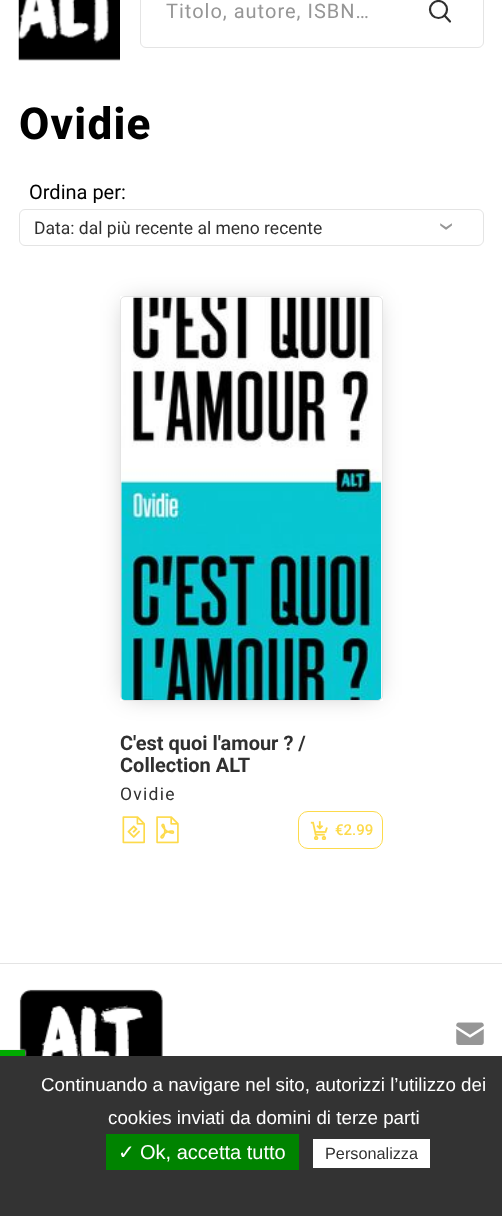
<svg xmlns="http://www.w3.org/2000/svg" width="502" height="1216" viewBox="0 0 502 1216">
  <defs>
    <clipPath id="clip1"><path d="M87 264H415V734H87ZM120 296H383V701H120Z" clip-rule="evenodd"/></clipPath>
    <filter id="blur1" x="-50%" y="-200%" width="200%" height="500%"><feGaussianBlur stdDeviation="12.5"/></filter>
    <filter id="blur2" x="-50%" y="-200%" width="200%" height="500%"><feGaussianBlur stdDeviation="1"/></filter>
  </defs>
  <rect width="100%" height="100%" fill="#ffffff"/>
  <image x="18" y="0" width="102" height="61" href="img1.png"/>
  <rect x="140.5" y="-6.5" width="343" height="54" rx="5.5" fill="none" stroke="#e4e4e4"/>
  <text x="166" y="18" font-family="Roboto" font-size="20" letter-spacing="1" fill="#969696">Titolo, autore, ISBN…</text>
  <circle cx="438.5" cy="9.5" r="8.5" fill="none" stroke="#303030" stroke-width="2.2"/>
  <path d="M450 21.5L444.5 15.5" fill="none" stroke="#303030" stroke-width="2.2" stroke-linecap="round" stroke-linejoin="round"/>
  <text x="19" y="139" font-family="Roboto" font-size="44" font-weight="800" letter-spacing="1.25" fill="#000000">Ovidie</text>
  <text x="29" y="199" font-family="Roboto" font-size="20" fill="#000000">Ordina per:</text>
  <rect x="19.5" y="209.5" width="464" height="36" rx="5.5" fill="none" stroke="#e4e4e4"/>
  <text x="34" y="234" font-family="Roboto" font-size="17.5" fill="#303030">Data: dal più recente al meno recente</text>
  <text x="438" y="222" transform="rotate(90 438 222)" font-family="Roboto" font-size="30" fill="#969696">›</text>
  <g clip-path="url(#clip1)">
    <rect x="126" y="303" width="250" height="392" fill="#000000" fill-opacity="0.25" filter="url(#blur1)"/>
  </g>
  <rect x="120.5" y="296.5" width="262" height="404" rx="4.5" fill="none" stroke="#e4e4e4"/>
  <image x="121" y="297" width="261" height="403" href="img2.png"/>
  <text x="120" y="750" font-family="Roboto" font-size="20" font-weight="bold" fill="#303030">C'est quoi l'amour ? /</text>
  <text x="120" y="772" font-family="Roboto" font-size="20" font-weight="bold" fill="#303030">Collection ALT</text>
  <text x="120" y="800" font-family="Roboto" font-size="17.5" letter-spacing="1.25" fill="#303030">Ovidie</text>
  <image x="122" y="816" width="23" height="28" href="img3.png"/>
  <image x="156" y="816" width="23" height="28" href="img4.png"/>
  <rect x="298.5" y="811.5" width="84" height="37" rx="9.5" fill="none" stroke="#fdda4b"/>
  <image x="310" y="821" width="18" height="19" href="img5.png"/>
  <text x="335" y="835" font-family="Roboto" font-size="15" font-weight="500" fill="#fdda4b">€2.99</text>
  <rect x="0" y="963" width="502" height="1" fill="#e4e4e4"/>
  <image x="19" y="989" width="144" height="67" href="img6.png"/>
  <image x="456" y="1022" width="28" height="23" href="img7.png"/>
  <rect x="0" y="1051" width="25" height="7" fill="#555555" filter="url(#blur2)"/>
  <rect x="0" y="1050" width="25" height="6" fill="#ffffff" filter="url(#blur2)"/>
  <rect x="0" y="1050" width="25" height="6" fill="#00aa00"/>
  <rect x="0" y="1056" width="502" height="160" fill="#333333"/>
  <text x="41" y="1091" font-family="Liberation Sans" font-size="18.75" fill="#ffffff">Continuando a navigare nel sito, autorizzi l’utilizzo dei</text>
  <text x="108" y="1124" font-family="Liberation Sans" font-size="18.75" fill="#ffffff">cookies inviati da domini di terze parti</text>
  <rect x="106" y="1134" width="193" height="36" fill="#008300"/>
  <text x="118" y="1159" font-family="DejaVu Sans" font-size="20" fill="#ffffff">✓</text>
  <text x="140" y="1159" font-family="Liberation Sans" font-size="20" fill="#ffffff">Ok, accetta tutto</text>
  <rect x="313" y="1139" width="117" height="29" fill="#ffffff"/>
  <text x="325" y="1159" font-family="Liberation Sans" font-size="16.25" fill="#303030">Personalizza</text>
</svg>
